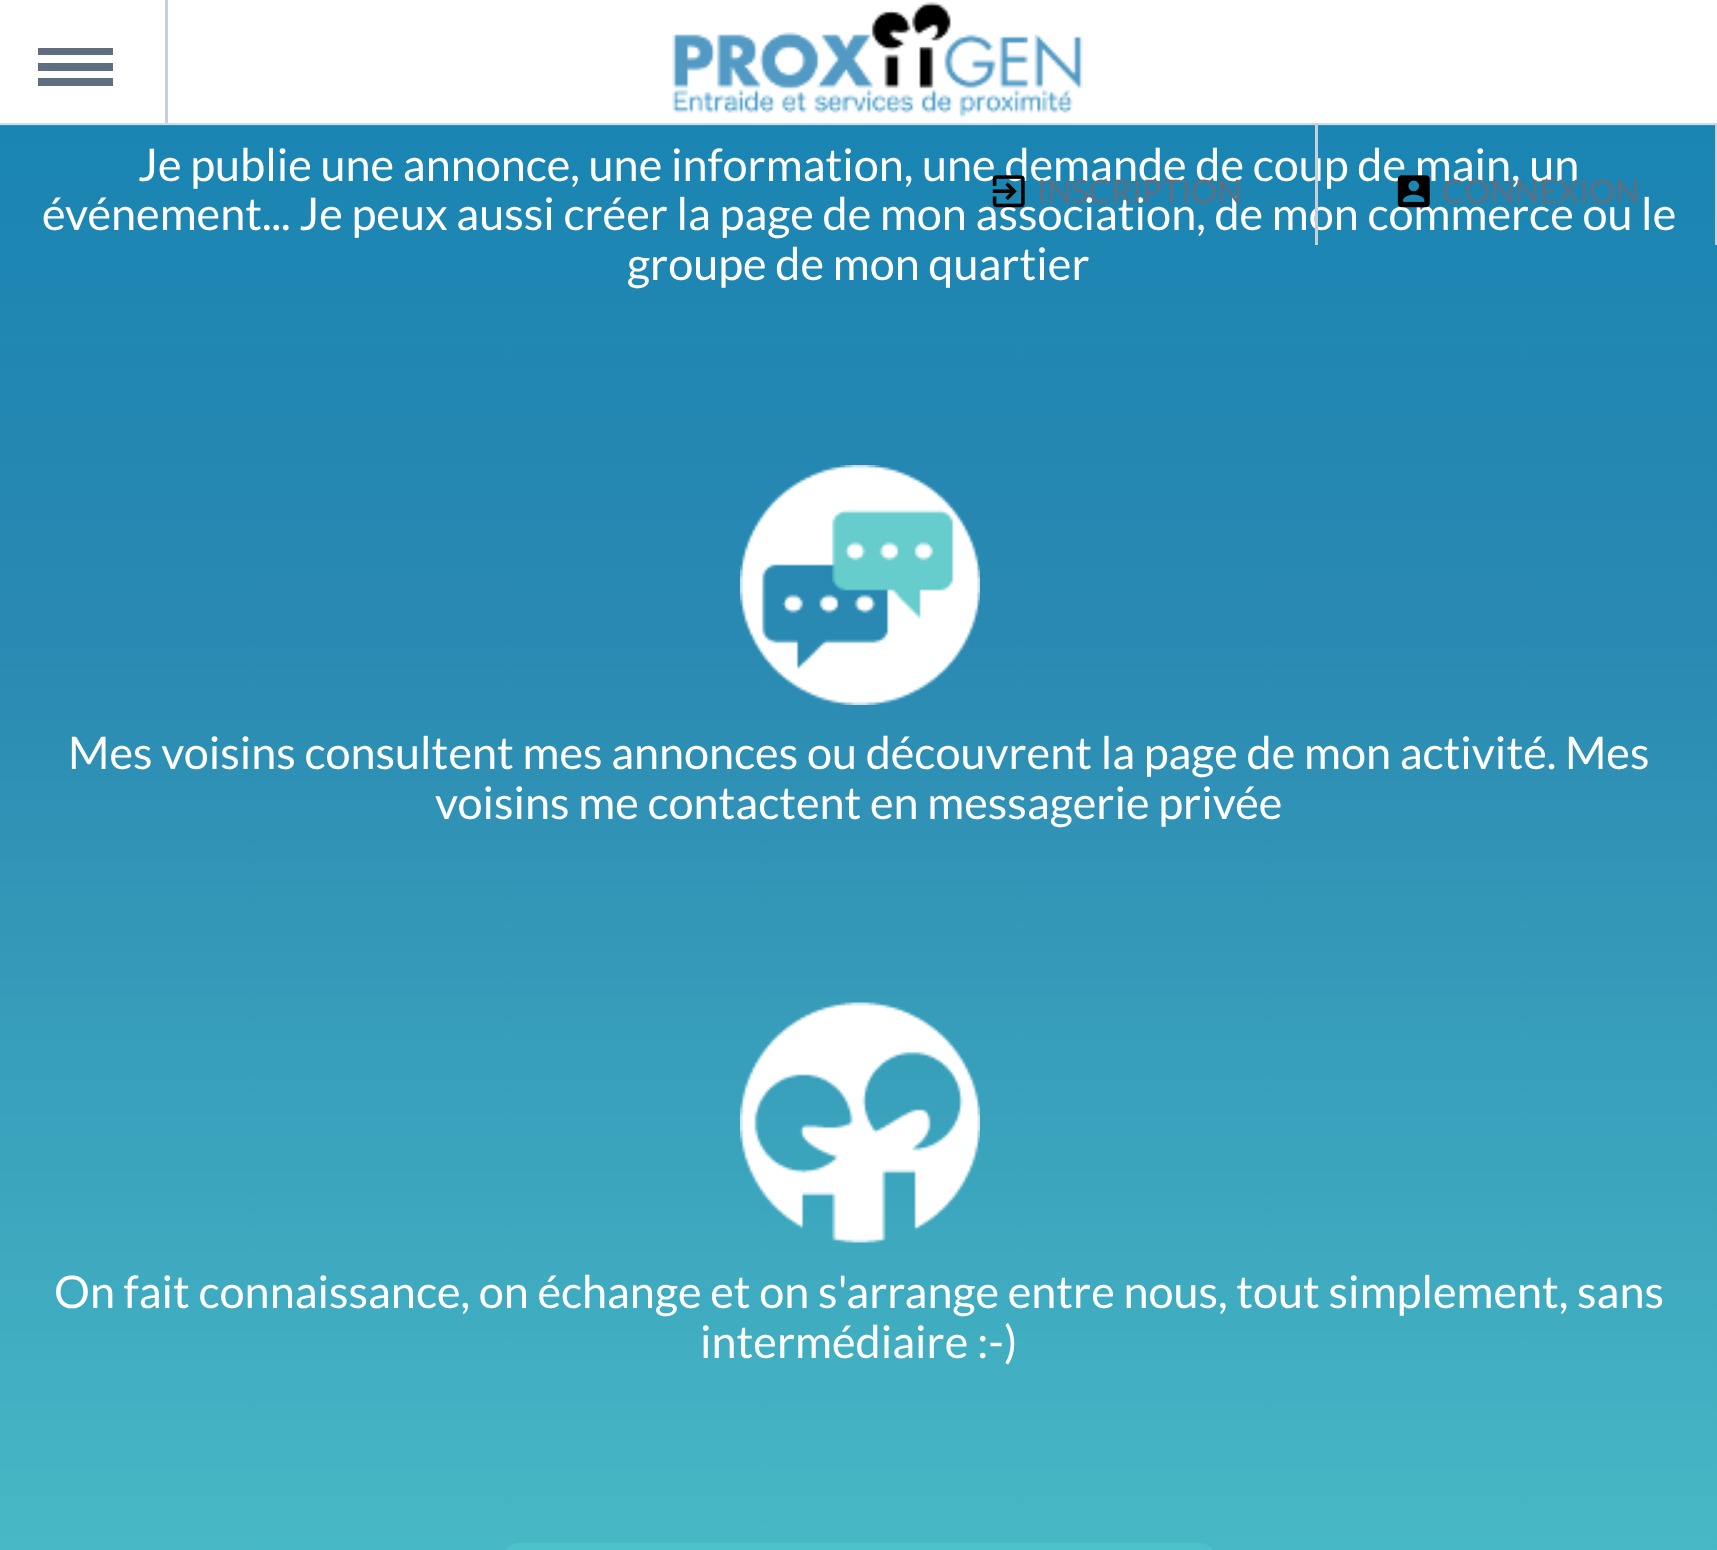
<svg xmlns="http://www.w3.org/2000/svg" width="1717" height="1550" viewBox="0 0 1717 1550">
  <defs>
    <linearGradient id="g1" gradientUnits="userSpaceOnUse" x1="859" y1="-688" x2="859" y2="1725"><stop offset="0" stop-color="#007eb4"/><stop offset="0.55" stop-color="#2a89b2"/><stop offset="1" stop-color="#4dc1c9"/></linearGradient>
    <linearGradient id="g2" gradientUnits="userSpaceOnUse" x1="859" y1="-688" x2="859" y2="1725"><stop offset="0" stop-color="#1c88b7"/><stop offset="0.55" stop-color="#398fb6"/><stop offset="1" stop-color="#50b4c5"/></linearGradient>
  </defs>
  <rect width="100%" height="100%" fill="#ffffff"/>
  <rect x="0" y="126" width="1717" height="1424" fill="url(#g1)"/>
  <rect x="0" y="125" width="1717" height="1" fill="url(#g2)"/>
  <text x="138" y="181" font-family="Lato" font-size="45" fill="#ffffff">Je publie une annonce, une information, une demande de coup de main, un</text>
  <text x="42" y="230" font-family="Lato" font-size="45" fill="#ffffff">événement... Je peux aussi créer la page de mon association, de mon commerce ou le</text>
  <text x="627" y="280" font-family="Lato" font-size="45" fill="#ffffff">groupe de mon quartier</text>
  <image x="740" y="465" width="240" height="240" href="img1.png"/>
  <text x="68" y="769" font-family="Lato" font-size="45" fill="#ffffff">Mes voisins consultent mes annonces ou découvrent la page de mon activité. Mes</text>
  <text x="435" y="819" font-family="Lato" font-size="45" fill="#ffffff">voisins me contactent en messagerie privée</text>
  <image x="740" y="1002" width="240" height="241" href="img2.png"/>
  <text x="54" y="1308" font-family="Lato" font-size="45" fill="#ffffff">On fait connaissance, on échange et on s'arrange entre nous, tout simplement, sans</text>
  <text x="700" y="1358" font-family="Lato" font-size="45" fill="#ffffff">intermédiaire :-)</text>
  <rect x="505" y="1543" width="708" height="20" rx="13" fill="#4dc1c9"/>
  <rect x="0" y="123" width="1717" height="2" fill="#c7deea"/>
  <rect x="165" y="0" width="3" height="123" fill="#c6d0da"/>
  <rect x="38" y="48" width="75" height="7" fill="#5f6f81"/>
  <rect x="38" y="63" width="75" height="8" fill="#5f6f81"/>
  <rect x="38" y="78" width="75" height="8" fill="#5f6f81"/>
  <image x="672" y="2" width="411" height="116" href="img3.png"/>
  <rect x="1315" y="123" width="3" height="122" fill="#c6d0da"/>
  <image x="992" y="175" width="33" height="33" href="img4.png"/>
  <text x="1037" y="203" font-family="Lato" font-size="32.5" fill="#5f6f81">INSCRIPTION</text>
  <rect x="1715" y="123" width="2" height="122" fill="#c6d0da"/>
  <image x="1397" y="175" width="33" height="33" href="img5.png"/>
  <text x="1442" y="203" font-family="Lato" font-size="32.5" fill="#5f6f81">CONNEXION</text>
</svg>
